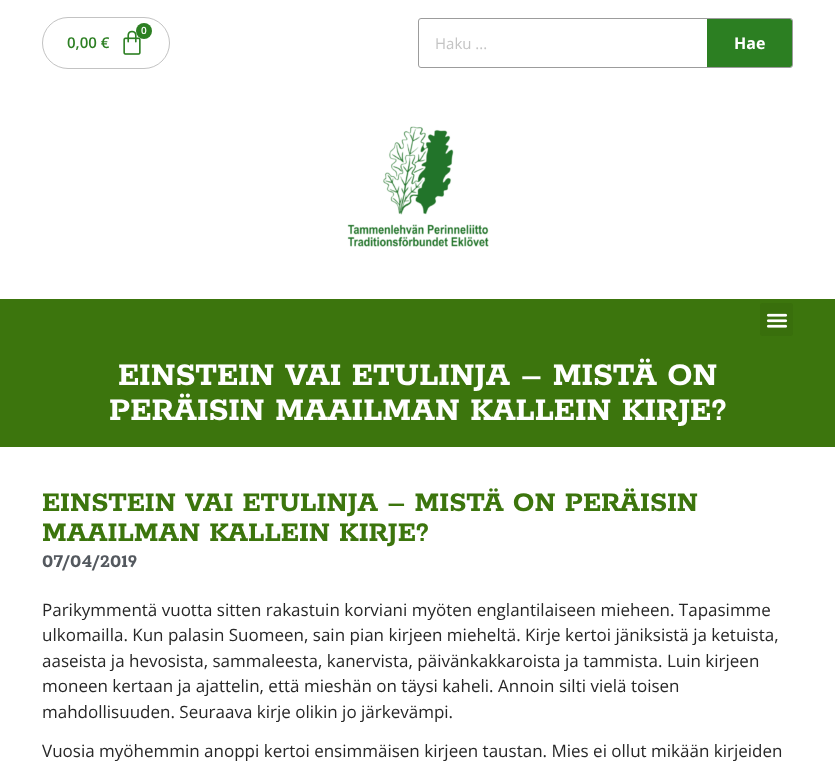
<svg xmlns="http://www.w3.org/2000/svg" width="835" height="774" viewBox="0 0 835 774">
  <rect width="100%" height="100%" fill="#ffffff"/>
  <rect x="42.5" y="17.5" width="127" height="51" rx="25.5" fill="none" stroke="#c3c3c3"/>
  <image x="123" y="30" width="18" height="25" href="img1.png"/>
  <circle cx="144" cy="31" r="8" fill="#2c7f22"/>
  <text x="141" y="34" font-family="Open Sans" font-size="10" font-weight="600" fill="#ffffff">0</text>
  <text x="67" y="48" font-family="Open Sans" font-size="15" font-weight="600" fill="#2c7f22">0,00 €</text>
  <rect x="418.5" y="18.5" width="374" height="49" rx="2.5" fill="none" stroke="#9c9c9c"/>
  <text x="435" y="49" font-family="Open Sans" font-size="15" fill="#c4c4c4">Haku ...</text>
  <path d="M707 19H790C791 19 792 20 792 21V65C792 66 791 67 790 67H707Z" fill="#2c7f22"/>
  <text x="734" y="49" font-family="Open Sans" font-size="16" font-weight="bold" fill="#ffffff">Hae</text>
  <image x="347" y="126" width="142" height="121" href="img2.png"/>
  <rect x="0" y="299" width="835" height="148" fill="#3c750d"/>
  <rect x="760" y="303" width="33" height="33" rx="3" fill="#396f0c"/>
  <image x="766" y="313" width="22" height="15" href="img3.png"/>
  <text x="118" y="385" font-family="Rokkitt" font-size="35" font-weight="bold" fill="#ffffff">EINSTEIN VAI ETULINJA – MISTÄ ON</text>
  <text x="109" y="420" font-family="Rokkitt" font-size="35" font-weight="bold" fill="#ffffff">PERÄISIN MAAILMAN KALLEIN KIRJE?</text>
  <text x="42" y="511" font-family="Rokkitt" font-size="30" font-weight="bold" fill="#3c750d">EINSTEIN VAI ETULINJA – MISTÄ ON PERÄISIN</text>
  <text x="42" y="541" font-family="Rokkitt" font-size="30" font-weight="bold" fill="#3c750d">MAAILMAN KALLEIN KIRJE?</text>
  <text x="42" y="567" font-family="Rokkitt" font-size="20" font-weight="bold" fill="#54595f">07/04/2019</text>
  <text x="42" y="616" font-family="Open Sans" font-size="17" fill="#272727">Parikymmentä vuotta sitten rakastuin korviani myöten englantilaiseen mieheen. Tapasimme</text>
  <text x="42" y="641" font-family="Open Sans" font-size="17" fill="#272727">ulkomailla. Kun palasin Suomeen, sain pian kirjeen mieheltä. Kirje kertoi jäniksistä ja ketuista,</text>
  <text x="42" y="667" font-family="Open Sans" font-size="17" fill="#272727">aaseista ja hevosista, sammaleesta, kanervista, päivänkakkaroista ja tammista. Luin kirjeen</text>
  <text x="42" y="692" font-family="Open Sans" font-size="17" fill="#272727">moneen kertaan ja ajattelin, että mieshän on täysi kaheli. Annoin silti vielä toisen</text>
  <text x="42" y="718" font-family="Open Sans" font-size="17" fill="#272727">mahdollisuuden. Seuraava kirje olikin jo järkevämpi.</text>
  <text x="42" y="757" font-family="Open Sans" font-size="17" fill="#272727">Vuosia myöhemmin anoppi kertoi ensimmäisen kirjeen taustan. Mies ei ollut mikään kirjeiden</text>
</svg>
